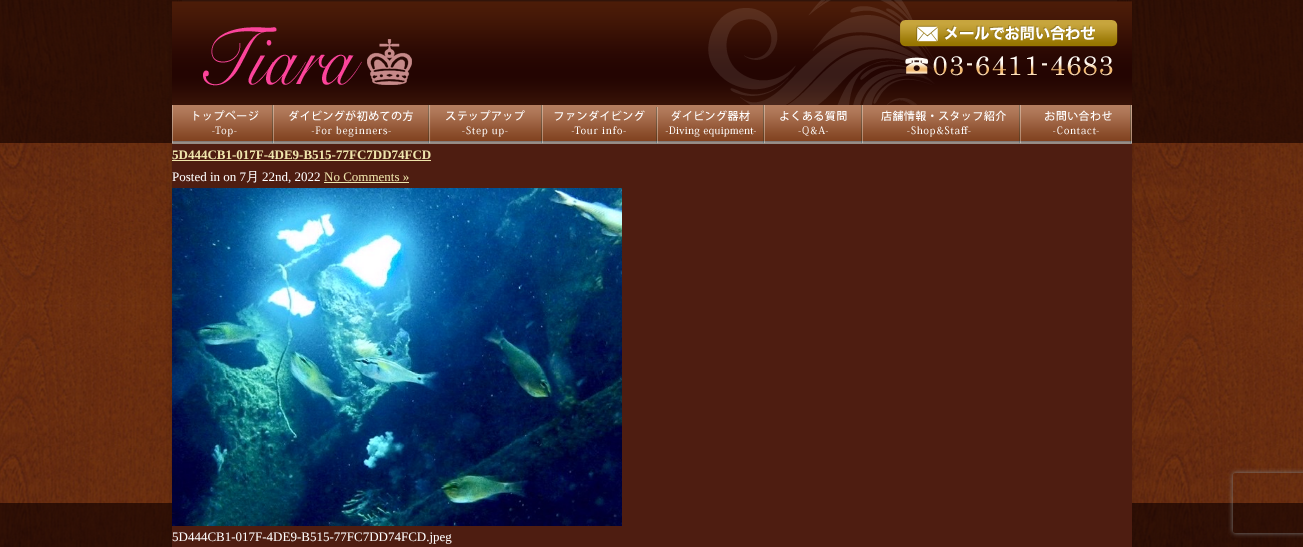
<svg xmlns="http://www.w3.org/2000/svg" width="1303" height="547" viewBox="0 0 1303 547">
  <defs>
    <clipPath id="clip1"><path d="M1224 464H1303V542H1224ZM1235 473H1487C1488 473 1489 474 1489 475V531C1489 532 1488 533 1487 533H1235C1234 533 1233 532 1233 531V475C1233 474 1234 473 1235 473Z" clip-rule="evenodd"/></clipPath>
    <filter id="blur1" x="-50%" y="-200%" width="200%" height="500%"><feGaussianBlur stdDeviation="2.5"/></filter>
  </defs>
  <rect width="100%" height="100%" fill="#ffffff"/>
  <image x="0" y="0" width="1303" height="547" href="img1.png"/>
  <rect x="172" y="0" width="960" height="547" fill="#4e1d11"/>
  <image x="172" y="0" width="527" height="105" href="img2.png"/>
  <image x="699" y="0" width="433" height="105" href="img3.png"/>
  <image x="172" y="105" width="100" height="39" href="img4.png"/>
  <image x="272" y="105" width="156" height="39" href="img5.png"/>
  <image x="428" y="105" width="113" height="39" href="img6.png"/>
  <image x="541" y="105" width="115" height="39" href="img7.png"/>
  <image x="656" y="105" width="107" height="39" href="img8.png"/>
  <image x="763" y="105" width="98" height="39" href="img9.png"/>
  <image x="861" y="105" width="158" height="39" href="img10.png"/>
  <image x="1019" y="105" width="113" height="39" href="img11.png"/>
  <text x="172" y="159" font-family="Liberation Serif" font-size="13" font-weight="bold" fill="#efe5ac">5D444CB1-017F-4DE9-B515-77FC7DD74FCD</text>
  <rect x="172" y="160" width="259" height="1" fill="#efe5ac"/>
  <text x="172" y="181" font-family="Liberation Serif" font-size="13" fill="#ffffff">Posted in on 7</text>
  <text x="246" y="181" font-family="WenQuanYi Zen Hei" font-size="13" font-weight="500" fill="#ffffff">月</text>
  <text x="262" y="181" font-family="Liberation Serif" font-size="13" fill="#ffffff">22nd, 2022</text>
  <text x="324" y="181" font-family="Liberation Serif" font-size="13" fill="#efe5ac">No Comments »</text>
  <rect x="324" y="182" width="85" height="1" fill="#efe5ac"/>
  <image x="172" y="188" width="450" height="338" href="img12.png"/>
  <text x="172" y="541" font-family="Liberation Serif" font-size="13" fill="#ffffff">5D444CB1-017F-4DE9-B515-77FC7DD74FCD.jpeg</text>
  <g clip-path="url(#clip1)">
    <rect x="1233" y="473" width="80" height="60" rx="2" fill="#808080" filter="url(#blur1)"/>
  </g>
</svg>
